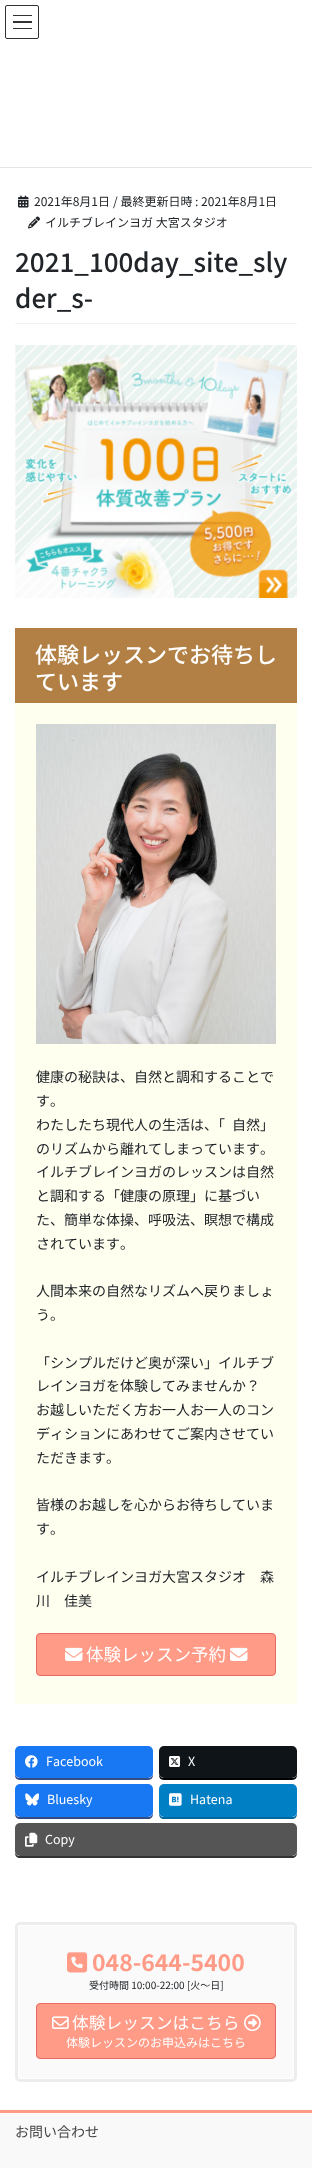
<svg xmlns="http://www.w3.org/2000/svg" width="312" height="2168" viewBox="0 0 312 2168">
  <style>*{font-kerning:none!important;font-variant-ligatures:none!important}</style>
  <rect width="100%" height="100%" fill="#ffffff"/>
  <rect x="13" y="15" width="19" height="1" fill="#333333"/>
  <rect x="13" y="21" width="19" height="2" fill="#333333"/>
  <rect x="13" y="28" width="19" height="1" fill="#333333"/>
  <rect x="5.5" y="5.5" width="33" height="33" rx="1.5" fill="none" stroke="#333333"/>
  <rect x="0" y="167" width="312" height="1" fill="#e5e5e5"/>
  <rect x="15" y="323" width="282" height="1" fill="#f2f2f2"/>
  <image x="18" y="195" width="11" height="13" href="img1.png"/>
  <text x="34" y="206" font-family="Noto Sans JP" font-size="12" fill="#212529">2021年8月1日</text>
  <text x="113" y="206" font-family="Noto Sans JP" font-size="12" fill="#212529">/ 最終更新日時 : 2021年8月1日</text>
  <image x="28" y="216" width="12" height="13" href="img2.png"/>
  <text x="45" y="227" font-family="Noto Sans JP" font-size="12" fill="#212529">イルチブレインヨガ 大宮スタジオ</text>
  <text x="15" y="272" font-family="Noto Sans JP" font-size="26" font-weight="500" fill="#212529">2021_100day_site_sly</text>
  <text x="15" y="308" font-family="Noto Sans JP" font-size="26" font-weight="500" fill="#212529">der_s-</text>
  <image x="15" y="345" width="282" height="253" href="img3.png"/>
  <rect x="15" y="703" width="282" height="1001" fill="#fffff0"/>
  <rect x="15" y="628" width="282" height="75" fill="#b28044"/>
  <text x="35" y="663" font-family="Noto Sans JP" font-size="22" font-weight="500" fill="#ffffff">体験レッスンでお待ちし</text>
  <text x="35" y="690" font-family="Noto Sans JP" font-size="22" font-weight="500" fill="#ffffff">ています</text>
  <image x="36" y="724" width="240" height="320" href="img4.png"/>
  <text x="36" y="1082" font-family="Noto Sans JP" font-size="14" fill="#212529">健康の秘訣は、自然と調和することで</text>
  <text x="36" y="1106" font-family="Noto Sans JP" font-size="14" fill="#212529">す。</text>
  <text x="36" y="1130" font-family="Noto Sans JP" font-size="14" fill="#212529">わたしたち現代人の生活は、「</text>
  <text x="232" y="1130" font-family="Noto Sans JP" font-size="14" fill="#212529">自然」</text>
  <text x="36" y="1154" font-family="Noto Sans JP" font-size="14" fill="#212529">のリズムから離れてしまっています。</text>
  <text x="36" y="1177" font-family="Noto Sans JP" font-size="14" fill="#212529">イルチブレインヨガのレッスンは自然</text>
  <text x="36" y="1201" font-family="Noto Sans JP" font-size="14" fill="#212529">と調和する「健康の原理」に基づい</text>
  <text x="36" y="1225" font-family="Noto Sans JP" font-size="14" fill="#212529">た、簡単な体操、呼吸法、瞑想で構成</text>
  <text x="36" y="1249" font-family="Noto Sans JP" font-size="14" fill="#212529">されています。</text>
  <text x="36" y="1296" font-family="Noto Sans JP" font-size="14" fill="#212529">人間本来の自然なリズムへ戻りましょ</text>
  <text x="36" y="1320" font-family="Noto Sans JP" font-size="14" fill="#212529">う。</text>
  <text x="36" y="1368" font-family="Noto Sans JP" font-size="14" fill="#212529">「シンプルだけど奥が深い」イルチブ</text>
  <text x="36" y="1391" font-family="Noto Sans JP" font-size="14" fill="#212529">レインヨガを体験してみませんか？</text>
  <text x="36" y="1415" font-family="Noto Sans JP" font-size="14" fill="#212529">お越しいただく方お一人お一人のコン</text>
  <text x="36" y="1439" font-family="Noto Sans JP" font-size="14" fill="#212529">ディションにあわせてご案内させてい</text>
  <text x="36" y="1463" font-family="Noto Sans JP" font-size="14" fill="#212529">ただきます。</text>
  <text x="36" y="1510" font-family="Noto Sans JP" font-size="14" fill="#212529">皆様のお越しを心からお待ちしていま</text>
  <text x="36" y="1534" font-family="Noto Sans JP" font-size="14" fill="#212529">す。</text>
  <text x="36" y="1582" font-family="Noto Sans JP" font-size="14" fill="#212529">イルチブレインヨガ大宮スタジオ　森</text>
  <text x="36" y="1606" font-family="Noto Sans JP" font-size="14" fill="#212529">川　佳美</text>
  <rect x="36.5" y="1633.5" width="239" height="42" rx="3.5" fill="#ff9b87" stroke="#ed6863"/>
  <image x="65" y="1647" width="18" height="14" href="img5.png"/>
  <text x="86" y="1661" font-family="Noto Sans JP" font-size="17.5" fill="#ffffff">体験レッスン予約</text>
  <image x="230" y="1647" width="18" height="14" href="img5.png"/>
  <path d="M15 1773V1775C15 1778 17 1780 20 1780H148C151 1780 153 1778 153 1775V1773C153 1776 151 1778 148 1778H20C17 1778 15 1776 15 1773Z" fill="#344e84"/>
  <rect x="15" y="1746" width="138" height="32" rx="5" fill="#1877f2"/>
  <image x="25" y="1755" width="13" height="13" href="img6.png"/>
  <text x="46" y="1766" font-family="Noto Sans JP" font-size="12.5" fill="#ffffff">Facebook</text>
  <path d="M159 1773V1775C159 1778 161 1780 164 1780H292C295 1780 297 1778 297 1775V1773C297 1776 295 1778 292 1778H164C161 1778 159 1776 159 1773Z" fill="#000000"/>
  <rect x="159" y="1746" width="138" height="32" rx="5" fill="#0f1419"/>
  <image x="169" y="1756" width="12" height="11" href="img7.png"/>
  <text x="188" y="1766" font-family="Noto Sans JP" font-size="12.5" fill="#ffffff">X</text>
  <path d="M15 1812V1814C15 1817 17 1819 20 1819H148C151 1819 153 1817 153 1814V1812C153 1815 151 1817 148 1817H20C17 1817 15 1815 15 1812Z" fill="#344e84"/>
  <rect x="15" y="1784" width="138" height="33" rx="5" fill="#1877f2"/>
  <image x="25" y="1793" width="14" height="13" href="img8.png"/>
  <text x="47" y="1804" font-family="Noto Sans JP" font-size="12.5" fill="#ffffff">Bluesky</text>
  <path d="M159 1812V1814C159 1817 161 1819 164 1819H292C295 1819 297 1817 297 1814V1812C297 1815 295 1817 292 1817H164C161 1817 159 1815 159 1812Z" fill="#00679f"/>
  <rect x="159" y="1784" width="138" height="33" rx="5" fill="#007fc5"/>
  <image x="169" y="1793" width="13" height="13" href="img9.png"/>
  <text x="190" y="1804" font-family="Noto Sans JP" font-size="12.5" fill="#ffffff">Hatena</text>
  <path d="M15 1851V1853C15 1856 17 1858 20 1858H292C295 1858 297 1856 297 1853V1851C297 1854 295 1856 292 1856H20C17 1856 15 1854 15 1851Z" fill="#333333"/>
  <rect x="15" y="1823" width="282" height="33" rx="5" fill="#555555"/>
  <image x="25" y="1832" width="13" height="15" href="img10.png"/>
  <text x="45" y="1844" font-family="Noto Sans JP" font-size="12.5" fill="#ffffff">Copy</text>
  <rect x="16.5" y="1923.5" width="279" height="157" rx="3.5" fill="none" stroke="#ededed" stroke-width="3"/>
  <rect x="18" y="1925" width="276" height="154" rx="2" fill="#fafafa"/>
  <path d="M20 1925C19 1925 18 1926 18 1927V2077C18 2078 19 2079 20 2079H292C293 2079 294 2078 294 2077V1927C294 1926 293 1925 292 1925ZM19 1926V2078H293V1926Z" fill="#fefefe" fill-rule="evenodd"/>
  <image x="67" y="1952" width="21" height="21" href="img11.png"/>
  <text x="92" y="1971" font-family="Noto Sans JP" font-size="23" font-weight="bold" fill="#ff9b87">048-644-5400</text>
  <text x="89" y="1989" font-family="Noto Sans JP" font-size="10" fill="#212529">受付時間 10:00-22:00 [火〜日]</text>
  <rect x="36.5" y="2003.5" width="239" height="55" rx="3.5" fill="#ff9b87" stroke="#ed6863"/>
  <image x="52" y="2016" width="17" height="13" href="img12.png"/>
  <text x="72" y="2029" font-family="Noto Sans JP" font-size="16.75" fill="#ffffff">体験レッスンはこちら</text>
  <image x="244" y="2014" width="17" height="18" href="img13.png"/>
  <text x="66" y="2047" font-family="Noto Sans JP" font-size="12" fill="#ffffff">体験レッスンのお申込みはこちら</text>
  <rect x="0" y="2113" width="312" height="55" fill="#f9f9f9"/>
  <rect x="0" y="2110" width="312" height="3" fill="#ff9b87"/>
  <text x="15" y="2137" font-family="Noto Sans JP" font-size="14" fill="#464646">お問い合わせ</text>
</svg>
